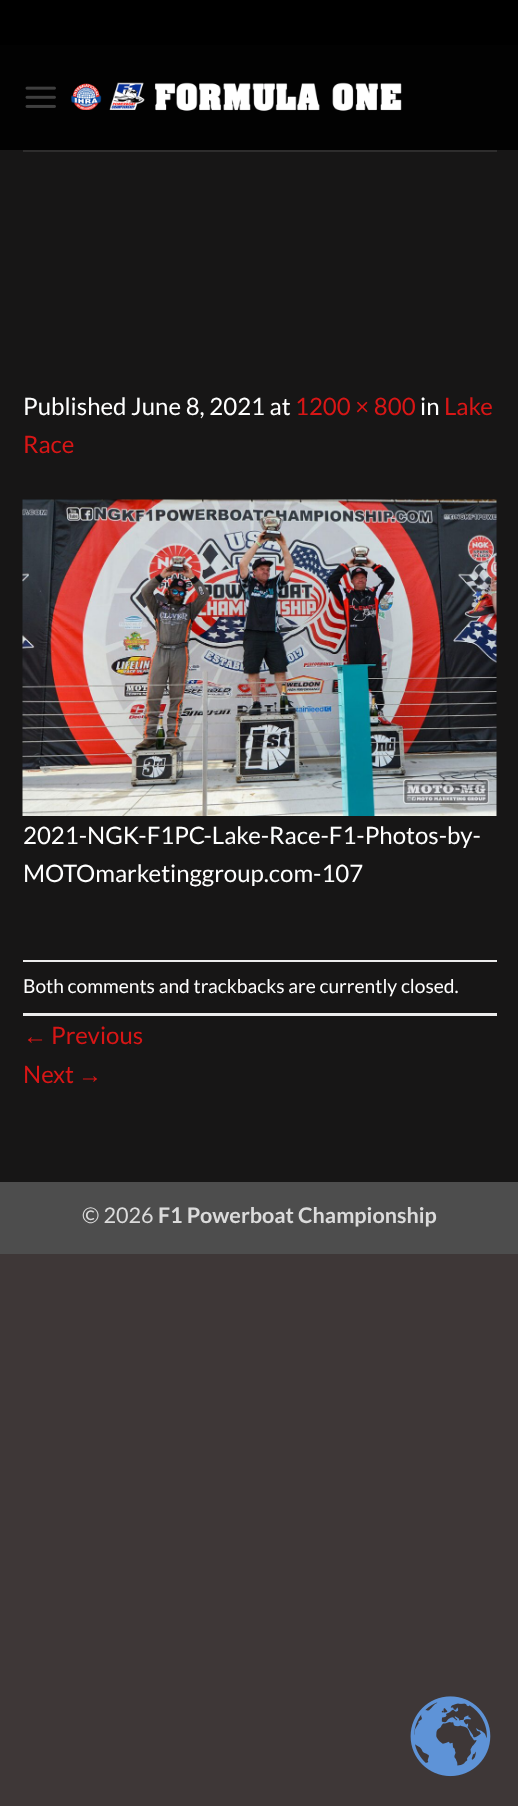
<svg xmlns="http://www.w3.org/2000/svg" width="518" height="1806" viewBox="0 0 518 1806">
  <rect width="100%" height="100%" fill="#3e3737"/>
  <rect x="0" y="150" width="518" height="1032" fill="#171616"/>
  <rect x="0" y="0" width="518" height="45" fill="#000000"/>
  <rect x="0" y="45" width="518" height="105" fill="#020202"/>
  <image x="25" y="86" width="31" height="22" href="img1.png"/>
  <image x="71" y="82" width="331" height="29" href="img2.png"/>
  <rect x="23" y="150" width="474" height="2" fill="#2e2d2d"/>
  <text x="23" y="415" font-family="Lato" font-size="24" fill="#ffffff">Published June 8, 2021 at</text>
  <text x="295" y="415" font-family="Lato" font-size="24" fill="#d81616">1200 × 800</text>
  <text x="420" y="415" font-family="Lato" font-size="24" fill="#ffffff">in</text>
  <text x="444" y="415" font-family="Lato" font-size="24" fill="#d81616">Lake</text>
  <text x="23" y="453" font-family="Lato" font-size="24" fill="#d81616">Race</text>
  <image x="22" y="499" width="475" height="317" href="img3.png"/>
  <text x="23" y="844" font-family="Lato" font-size="24" fill="#ffffff">2021-NGK-F1PC-Lake-Race-F1-Photos-by-</text>
  <text x="23" y="882" font-family="Lato" font-size="24" fill="#ffffff">MOTOmarketinggroup.com-107</text>
  <rect x="23" y="960" width="474" height="2" fill="#ececec"/>
  <rect x="23" y="1013" width="474" height="3" fill="#ececec"/>
  <text x="23" y="993" font-family="Lato" font-size="19.2" fill="#ffffff">Both comments and trackbacks are currently closed.</text>
  <text x="23" y="1044" font-family="Liberation Sans" font-size="24" fill="#d81616">←</text>
  <text x="51" y="1044" font-family="Lato" font-size="24" fill="#d81616">Previous</text>
  <text x="23" y="1083" font-family="Lato" font-size="24" fill="#d81616">Next</text>
  <text x="78" y="1083" font-family="Liberation Sans" font-size="24" fill="#d81616">→</text>
  <rect x="0" y="1182" width="518" height="72" fill="#4d4d4d"/>
  <text x="82" y="1223" font-family="Lato" font-size="21.6" fill="#dbdbdb">© 2026</text>
  <text x="158" y="1223" font-family="Lato" font-size="21.6" font-weight="bold" fill="#dbdbdb">F1 Powerboat Championship</text>
  <image x="410" y="1696" width="81" height="81" href="img4.png"/>
</svg>
